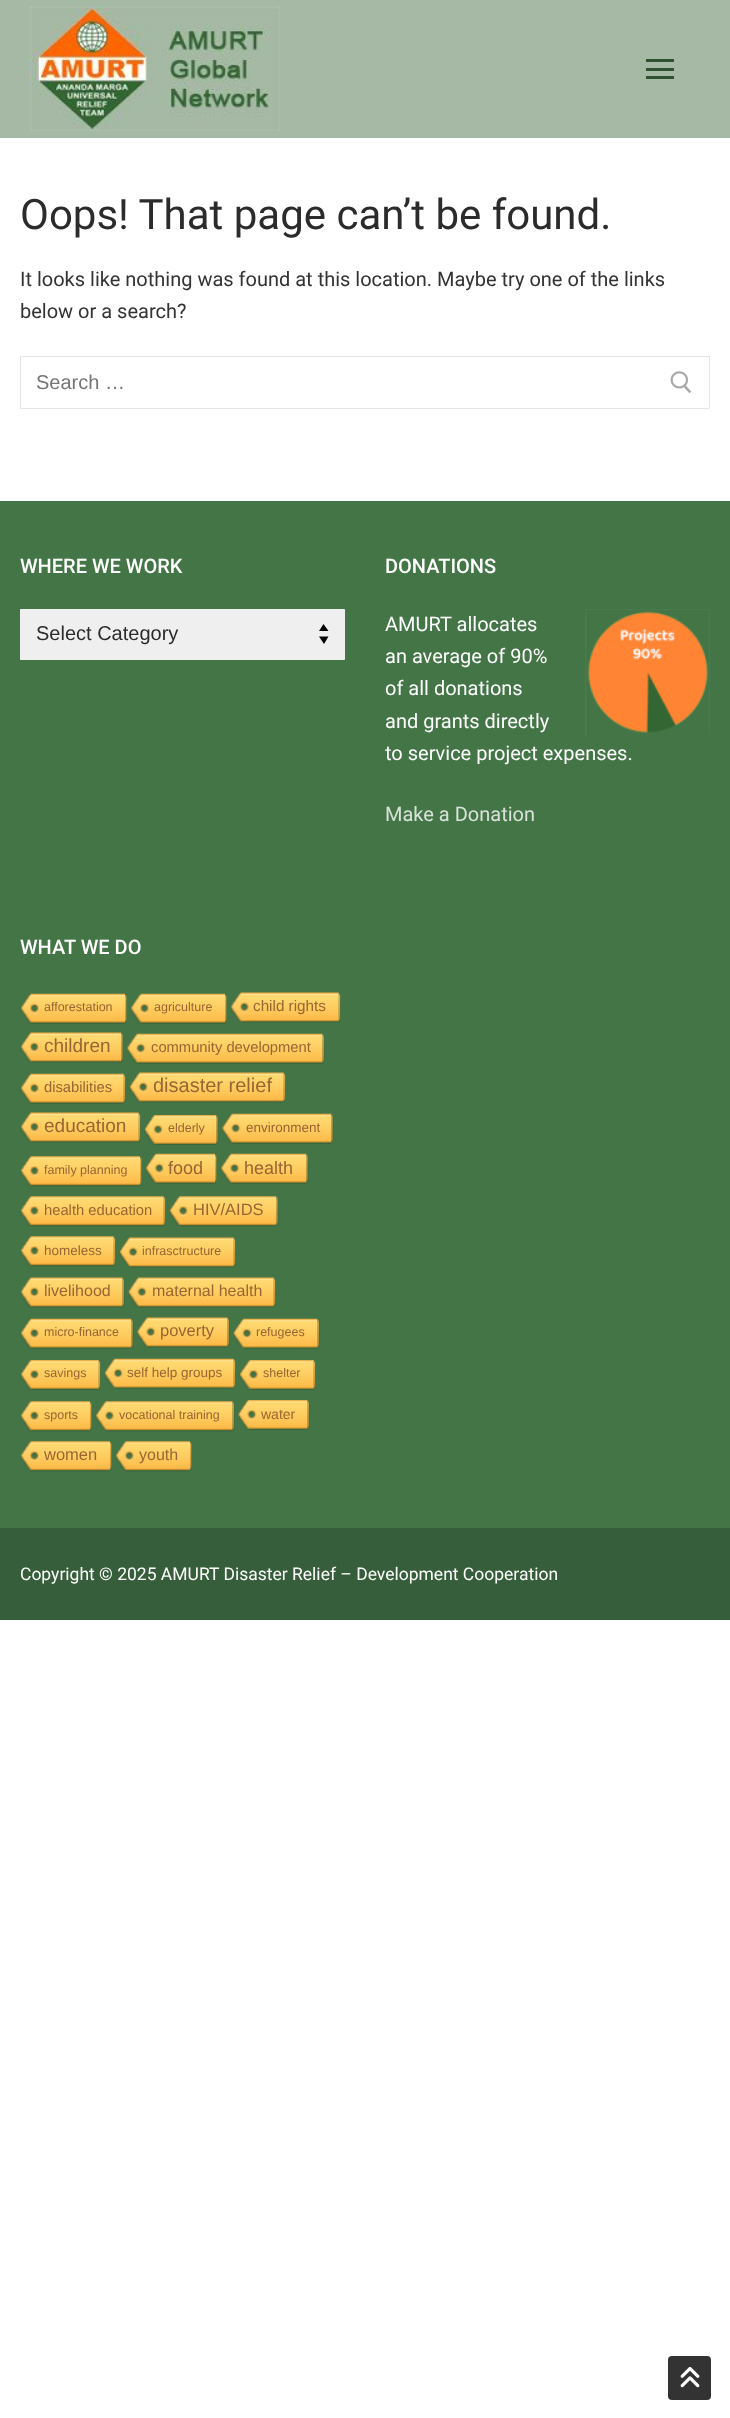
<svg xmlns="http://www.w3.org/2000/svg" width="730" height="2418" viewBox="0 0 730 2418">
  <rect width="100%" height="100%" fill="#ffffff"/>
  <rect x="0" y="0" width="730" height="138" fill="#a5b9a4"/>
  <image x="30" y="6" width="250" height="125" href="img1.png"/>
  <rect x="646" y="68" width="28" height="3" fill="#305032"/>
  <rect x="646" y="59" width="28" height="3" fill="#305032"/>
  <rect x="646" y="76" width="28" height="3" fill="#305032"/>
  <text x="20" y="229" font-family="Roboto" font-size="42" fill="#2b2b2b">Oops! That page can’t be found.</text>
  <text x="20" y="286" font-family="Roboto" font-size="20" fill="#333333">It looks like nothing was found at this location. Maybe try one of the links</text>
  <text x="20" y="318" font-family="Roboto" font-size="20" fill="#333333">below or a search?</text>
  <rect x="20.5" y="356.5" width="689" height="52" rx="0.5" fill="none" stroke="#e5e5e5"/>
  <text x="36" y="389" font-family="Liberation Sans" font-size="20" fill="#757575">Search …</text>
  <image x="670" y="371" width="22" height="23" href="img2.png"/>
  <rect x="0" y="501" width="730" height="1027" fill="#447547"/>
  <text x="20" y="573" font-family="Roboto" font-size="20" font-weight="500" fill="#fdfefd">WHERE WE WORK</text>
  <rect x="20" y="609" width="325" height="51" rx="1" fill="#efefef"/>
  <path d="M323.5 624L319 631H328.5ZM324 644L328.5 636.5H319Z" fill="#000000"/>
  <rect x="20.5" y="609.5" width="324" height="50" fill="none" stroke="#ffffff" stroke-opacity="0.08"/>
  <text x="36" y="640" font-family="Liberation Sans" font-size="20" fill="#2b2b2b">Select Category</text>
  <text x="385" y="573" font-family="Roboto" font-size="20" font-weight="500" fill="#fdfefd">DONATIONS</text>
  <text x="385" y="631" font-family="Roboto" font-size="20" fill="#fdfefd">AMURT allocates</text>
  <image x="585" y="609" width="125" height="126" href="img3.png"/>
  <text x="385" y="663" font-family="Roboto" font-size="20" fill="#fdfefd">an average of 90%</text>
  <text x="385" y="695" font-family="Roboto" font-size="20" fill="#fdfefd">of all donations</text>
  <text x="385" y="728" font-family="Roboto" font-size="20" fill="#fdfefd">and grants directly</text>
  <text x="385" y="760" font-family="Roboto" font-size="20" fill="#fdfefd">to service project expenses.</text>
  <text x="385" y="821" font-family="Roboto" font-size="20" fill="#d8e2d8">Make a Donation</text>
  <text x="20" y="954" font-family="Roboto" font-size="20" font-weight="500" fill="#fdfefd">WHAT WE DO</text>
  <image x="20" y="993" width="105" height="31" href="img4.png"/>
  <text x="44" y="1011" font-family="Liberation Sans" font-size="12.5" fill="#996633">afforestation</text>
  <image x="125" y="994" width="2" height="30" href="img5.png"/>
  <image x="130" y="993" width="95" height="31" href="img6.png"/>
  <text x="154" y="1011" font-family="Liberation Sans" font-size="12.5" fill="#996633">agriculture</text>
  <image x="225" y="994" width="2" height="30" href="img5.png"/>
  <image x="230" y="992" width="109" height="31" href="img7.png"/>
  <text x="253" y="1011" font-family="Liberation Sans" font-size="15.25" fill="#996633">child rights</text>
  <image x="338" y="993" width="3" height="29" href="img8.png"/>
  <image x="20" y="1032" width="102" height="31" href="img9.png"/>
  <text x="44" y="1052" font-family="Liberation Sans" font-size="19" fill="#996633">children</text>
  <image x="121" y="1033" width="3" height="29" href="img10.png"/>
  <image x="127" y="1033" width="196" height="31" href="img11.png"/>
  <text x="151" y="1052" font-family="Liberation Sans" font-size="14.75" fill="#996633">community development</text>
  <image x="322" y="1035" width="3" height="28" href="img12.png"/>
  <image x="20" y="1073" width="104" height="31" href="img13.png"/>
  <text x="44" y="1092" font-family="Liberation Sans" font-size="14.75" fill="#996633">disabilities</text>
  <image x="123" y="1074" width="3" height="29" href="img14.png"/>
  <image x="129" y="1072" width="155" height="31" href="img15.png"/>
  <text x="153" y="1092" font-family="Liberation Sans" font-size="20" fill="#996633">disaster relief</text>
  <image x="283" y="1073" width="3" height="29" href="img8.png"/>
  <image x="20" y="1112" width="119" height="31" href="img16.png"/>
  <text x="44" y="1132" font-family="Liberation Sans" font-size="19" fill="#996633">education</text>
  <image x="138" y="1113" width="3" height="29" href="img8.png"/>
  <image x="144" y="1115" width="73" height="30" href="img17.png"/>
  <text x="168" y="1132" font-family="Liberation Sans" font-size="12.5" fill="#996633">elderly</text>
  <image x="216" y="1116" width="3" height="28" href="img18.png"/>
  <image x="222" y="1113" width="110" height="31" href="img19.png"/>
  <text x="246" y="1132" font-family="Liberation Sans" font-size="13.5" fill="#996633">environment</text>
  <image x="331" y="1115" width="3" height="28" href="img20.png"/>
  <image x="20" y="1156" width="120" height="31" href="img21.png"/>
  <text x="44" y="1174" font-family="Liberation Sans" font-size="12.5" fill="#996633">family planning</text>
  <image x="140" y="1157" width="2" height="29" href="img22.png"/>
  <image x="145" y="1153" width="70" height="31" href="img23.png"/>
  <text x="168" y="1174" font-family="Liberation Sans" font-size="18" fill="#996633">food</text>
  <image x="215" y="1154" width="2" height="30" href="img24.png"/>
  <image x="220" y="1153" width="87" height="31" href="img25.png"/>
  <text x="244" y="1174" font-family="Liberation Sans" font-size="18" fill="#996633">health</text>
  <image x="306" y="1155" width="3" height="28" href="img26.png"/>
  <image x="20" y="1196" width="144" height="31" href="img27.png"/>
  <text x="44" y="1215" font-family="Liberation Sans" font-size="14.75" fill="#996633">health education</text>
  <image x="163" y="1197" width="3" height="29" href="img28.png"/>
  <image x="169" y="1196" width="108" height="31" href="img29.png"/>
  <text x="193" y="1215" font-family="Liberation Sans" font-size="16.5" fill="#996633">HIV/AIDS</text>
  <image x="276" y="1197" width="3" height="29" href="img30.png"/>
  <image x="20" y="1236" width="94" height="31" href="img31.png"/>
  <text x="44" y="1255" font-family="Liberation Sans" font-size="13.5" fill="#996633">homeless</text>
  <image x="113" y="1237" width="3" height="29" href="img28.png"/>
  <image x="119" y="1237" width="115" height="31" href="img32.png"/>
  <text x="142" y="1255" font-family="Liberation Sans" font-size="12.5" fill="#996633">infrasctructure</text>
  <image x="233" y="1238" width="3" height="29" href="img8.png"/>
  <image x="20" y="1277" width="103" height="31" href="img33.png"/>
  <text x="44" y="1296" font-family="Liberation Sans" font-size="16" fill="#996633">livelihood</text>
  <image x="122" y="1278" width="3" height="29" href="img34.png"/>
  <image x="128" y="1277" width="146" height="31" href="img35.png"/>
  <text x="152" y="1296" font-family="Liberation Sans" font-size="16" fill="#996633">maternal health</text>
  <image x="273" y="1278" width="3" height="29" href="img8.png"/>
  <image x="20" y="1318" width="112" height="31" href="img36.png"/>
  <text x="44" y="1336" font-family="Liberation Sans" font-size="12.5" fill="#996633">micro-finance</text>
  <image x="131" y="1320" width="3" height="28" href="img20.png"/>
  <image x="137" y="1317" width="91" height="31" href="img37.png"/>
  <text x="160" y="1336" font-family="Liberation Sans" font-size="16.5" fill="#996633">poverty</text>
  <image x="227" y="1318" width="3" height="29" href="img34.png"/>
  <image x="233" y="1318" width="85" height="31" href="img38.png"/>
  <text x="256" y="1336" font-family="Liberation Sans" font-size="12.5" fill="#996633">refugees</text>
  <image x="317" y="1320" width="3" height="28" href="img12.png"/>
  <image x="20" y="1360" width="79" height="30" href="img39.png"/>
  <text x="44" y="1377" font-family="Liberation Sans" font-size="12.5" fill="#996633">savings</text>
  <image x="98" y="1361" width="3" height="29" href="img40.png"/>
  <image x="104" y="1358" width="130" height="31" href="img41.png"/>
  <text x="127" y="1377" font-family="Liberation Sans" font-size="13.5" fill="#996633">self help groups</text>
  <image x="233" y="1359" width="3" height="29" href="img14.png"/>
  <image x="239" y="1360" width="75" height="30" href="img42.png"/>
  <text x="263" y="1377" font-family="Liberation Sans" font-size="12.5" fill="#996633">shelter</text>
  <image x="313" y="1361" width="3" height="29" href="img40.png"/>
  <image x="20" y="1401" width="70" height="31" href="img43.png"/>
  <text x="44" y="1419" font-family="Liberation Sans" font-size="12.5" fill="#996633">sports</text>
  <image x="90" y="1402" width="2" height="29" href="img44.png"/>
  <image x="95" y="1401" width="138" height="31" href="img45.png"/>
  <text x="119" y="1419" font-family="Liberation Sans" font-size="12.5" fill="#996633">vocational training</text>
  <image x="232" y="1402" width="3" height="29" href="img46.png"/>
  <image x="238" y="1400" width="70" height="30" href="img47.png"/>
  <text x="261" y="1419" font-family="Liberation Sans" font-size="14" fill="#996633">water</text>
  <image x="307" y="1401" width="3" height="28" href="img48.png"/>
  <image x="20" y="1441" width="90" height="31" href="img49.png"/>
  <text x="44" y="1460" font-family="Liberation Sans" font-size="16.5" fill="#996633">women</text>
  <image x="110" y="1442" width="2" height="29" href="img44.png"/>
  <image x="115" y="1441" width="75" height="31" href="img50.png"/>
  <text x="139" y="1460" font-family="Liberation Sans" font-size="16" fill="#996633">youth</text>
  <image x="190" y="1442" width="2" height="29" href="img44.png"/>
  <rect x="0" y="1528" width="730" height="92" fill="#375e3a"/>
  <text x="20" y="1580" font-family="Roboto" font-size="17.5" fill="#fdfefd">Copyright © 2025 AMURT Disaster Relief – Development Cooperation</text>
  <rect x="668" y="2356" width="43" height="44" rx="4" fill="#333333"/>
  <image x="680" y="2367" width="20" height="21" href="img51.png"/>
</svg>
